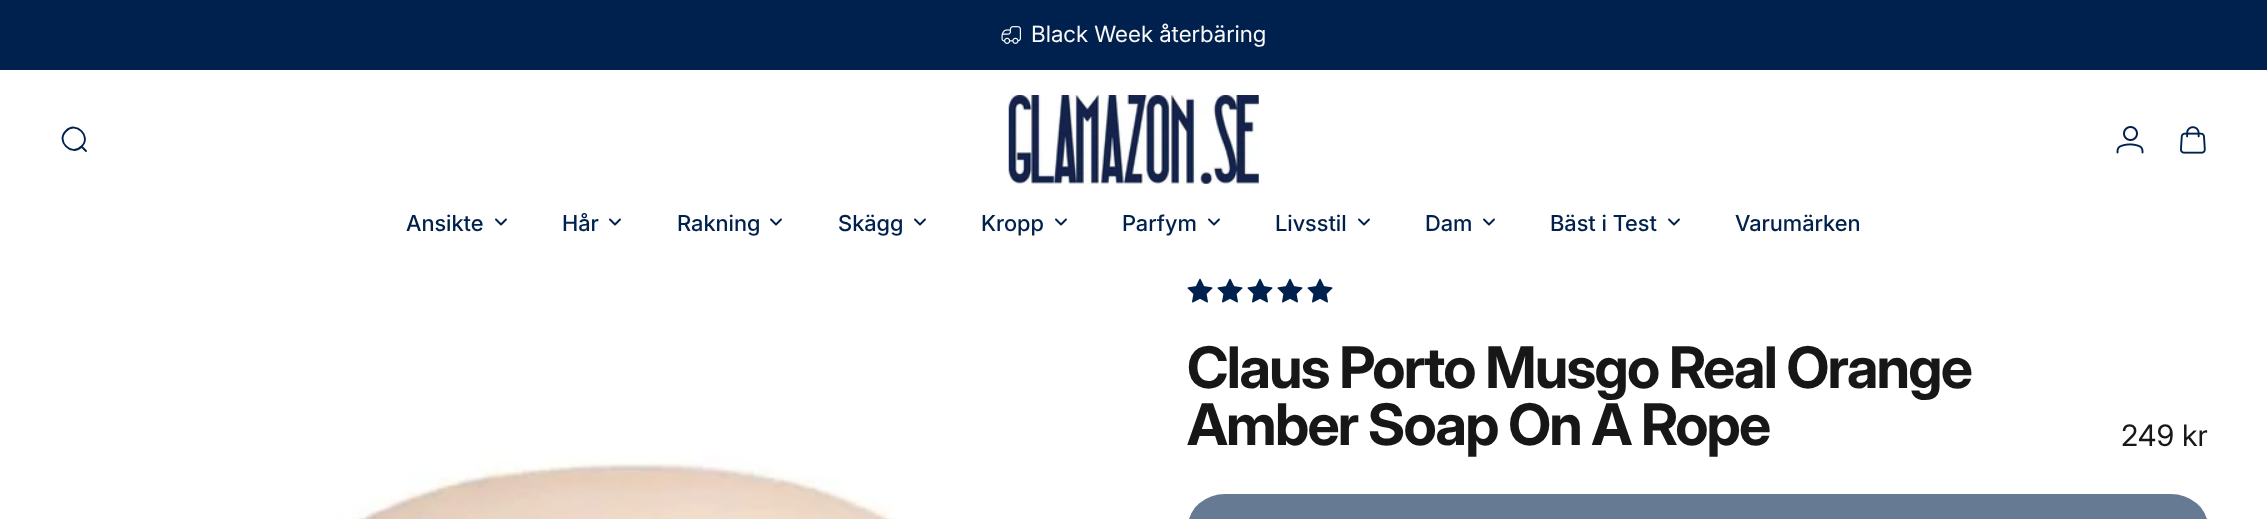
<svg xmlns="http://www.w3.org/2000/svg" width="2267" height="519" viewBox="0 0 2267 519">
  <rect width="100%" height="100%" fill="#ffffff"/>
  <rect x="0" y="0" width="2267" height="70" fill="#00214d"/>
  <image x="1001" y="26" width="20" height="18" href="img1.png"/>
  <text x="1031" y="42" font-family="Inter" font-size="22.5" fill="#fafafa">Black Week återbäring</text>
  <path d="M86 151L81.5 146.5M81.5 146.5C92 136.5 76 120.5 66 131C55.5 141 71.5 157 81.5 146.5Z" fill="none" stroke="#00214d" stroke-width="1.9" stroke-linecap="round"/>
  <image x="1008" y="95" width="251" height="89" href="img2.png"/>
  <image x="2116" y="126" width="28" height="28" href="img3.png"/>
  <image x="2180" y="126" width="26" height="28" href="img4.png"/>
  <text x="406" y="231" font-family="Inter" font-size="22" font-weight="500" fill="#00214d">Ansikte</text>
  <path d="M496 219.5L501 224.5L506 219.5" fill="none" stroke="#00214d" stroke-width="1.9" stroke-linecap="round" stroke-linejoin="round"/>
  <text x="562" y="231" font-family="Inter" font-size="22" font-weight="500" fill="#00214d">Hår</text>
  <path d="M610 219.5L615 224.5L620 219.5" fill="none" stroke="#00214d" stroke-width="1.9" stroke-linecap="round" stroke-linejoin="round"/>
  <text x="677" y="231" font-family="Inter" font-size="22" font-weight="500" fill="#00214d">Rakning</text>
  <path d="M771 219.5L776 224.5L781 219.5" fill="none" stroke="#00214d" stroke-width="1.9" stroke-linecap="round" stroke-linejoin="round"/>
  <text x="838" y="231" font-family="Inter" font-size="22" font-weight="500" fill="#00214d">Skägg</text>
  <path d="M915 219.5L920 224.5L925 219.5" fill="none" stroke="#00214d" stroke-width="1.9" stroke-linecap="round" stroke-linejoin="round"/>
  <text x="981" y="231" font-family="Inter" font-size="22" font-weight="500" fill="#00214d">Kropp</text>
  <path d="M1056 219.5L1061 224.5L1066 219.5" fill="none" stroke="#00214d" stroke-width="1.9" stroke-linecap="round" stroke-linejoin="round"/>
  <text x="1122" y="231" font-family="Inter" font-size="22" font-weight="500" fill="#00214d">Parfym</text>
  <path d="M1209 219.5L1214 224.5L1219 219.5" fill="none" stroke="#00214d" stroke-width="1.9" stroke-linecap="round" stroke-linejoin="round"/>
  <text x="1275" y="231" font-family="Inter" font-size="22" font-weight="500" fill="#00214d">Livsstil</text>
  <path d="M1359 219.5L1364 224.5L1369 219.5" fill="none" stroke="#00214d" stroke-width="1.9" stroke-linecap="round" stroke-linejoin="round"/>
  <text x="1425" y="231" font-family="Inter" font-size="22" font-weight="500" fill="#00214d">Dam</text>
  <path d="M1484 219.5L1489 224.5L1494 219.5" fill="none" stroke="#00214d" stroke-width="1.9" stroke-linecap="round" stroke-linejoin="round"/>
  <text x="1550" y="231" font-family="Inter" font-size="22" font-weight="500" fill="#00214d">Bäst i Test</text>
  <path d="M1669 219.5L1674 224.5L1679 219.5" fill="none" stroke="#00214d" stroke-width="1.9" stroke-linecap="round" stroke-linejoin="round"/>
  <text x="1735" y="231" font-family="Inter" font-size="22" font-weight="500" fill="#00214d">Varumärken</text>
  <image x="60" y="274" width="1020" height="245" href="img5.png"/>
  <image x="1187" y="278" width="26" height="25" href="img6.png"/>
  <image x="1217" y="278" width="26" height="25" href="img6.png"/>
  <image x="1247" y="278" width="26" height="25" href="img6.png"/>
  <image x="1277" y="278" width="26" height="25" href="img6.png"/>
  <image x="1307" y="278" width="26" height="25" href="img6.png"/>
  <text x="1187" y="388" font-family="Inter" font-size="57.25" font-weight="bold" letter-spacing="-1.75" fill="#171717">Claus Porto Musgo Real Orange</text>
  <text x="1187" y="445" font-family="Inter" font-size="57.25" font-weight="bold" letter-spacing="-1.75" fill="#171717">Amber Soap On A Rope</text>
  <text x="2121" y="446" font-family="'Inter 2'" font-size="29.5" fill="#171717">249 kr</text>
  <rect x="1189.5" y="495.5" width="1017" height="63" rx="36" fill="#667a94" stroke="#667a94" stroke-width="3"/>
</svg>
